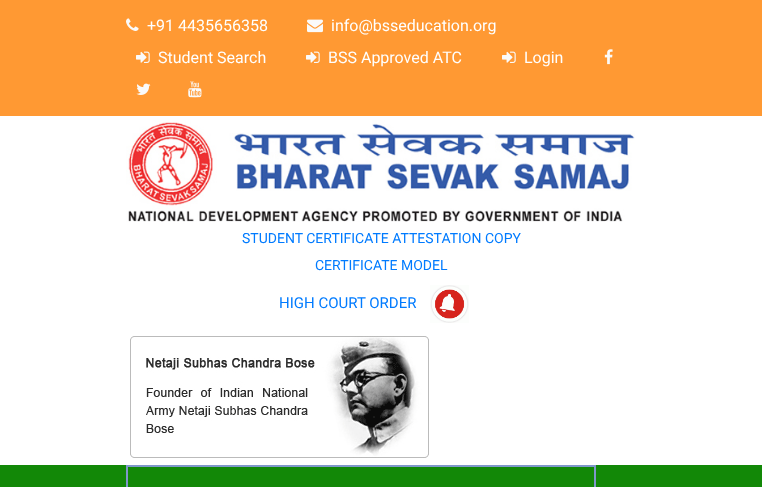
<svg xmlns="http://www.w3.org/2000/svg" width="762" height="487" viewBox="0 0 762 487">
  <rect width="100%" height="100%" fill="#ffffff"/>
  <rect x="0" y="0" width="762" height="116" fill="#ff9933"/>
  <image x="126" y="18" width="13" height="13" href="img1.png"/>
  <text x="147" y="31" font-family="Roboto" font-size="16" fill="#ffffff">+91 4435656358</text>
  <image x="307" y="19" width="16" height="14" href="img2.png"/>
  <text x="331" y="31" font-family="Roboto" font-size="16" fill="#ffffff">info@bsseducation.org</text>
  <image x="136" y="51" width="14" height="12" href="img3.png"/>
  <text x="158" y="63" font-family="Roboto" font-size="16" fill="#ffffff">Student Search</text>
  <image x="306" y="51" width="14" height="12" href="img3.png"/>
  <text x="328" y="63" font-family="Roboto" font-size="16" fill="#ffffff">BSS Approved ATC</text>
  <image x="502" y="51" width="14" height="12" href="img3.png"/>
  <text x="524" y="63" font-family="Roboto" font-size="16" fill="#ffffff">Login</text>
  <image x="604" y="49" width="9" height="16" href="img4.png"/>
  <image x="136" y="83" width="15" height="12" href="img5.png"/>
  <image x="188" y="81" width="14" height="17" href="img6.png"/>
  <image x="126" y="120" width="509" height="102" href="img7.png"/>
  <text x="242" y="243" font-family="Roboto" font-size="14" fill="#007bff">STUDENT CERTIFICATE ATTESTATION COPY</text>
  <text x="315" y="270" font-family="Roboto" font-size="14" fill="#007bff">CERTIFICATE MODEL</text>
  <text x="279" y="308" font-family="Roboto" font-size="15" fill="#007bff">HIGH COURT ORDER</text>
  <image x="430" y="285" width="39" height="38" href="img8.png"/>
  <image x="130" y="336" width="299" height="122" href="img9.png"/>
  <rect x="0" y="465" width="762" height="22" fill="#128807"/>
  <rect x="127" y="466" width="468" height="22" fill="none" stroke="#7f97ca" stroke-width="2"/>
</svg>
